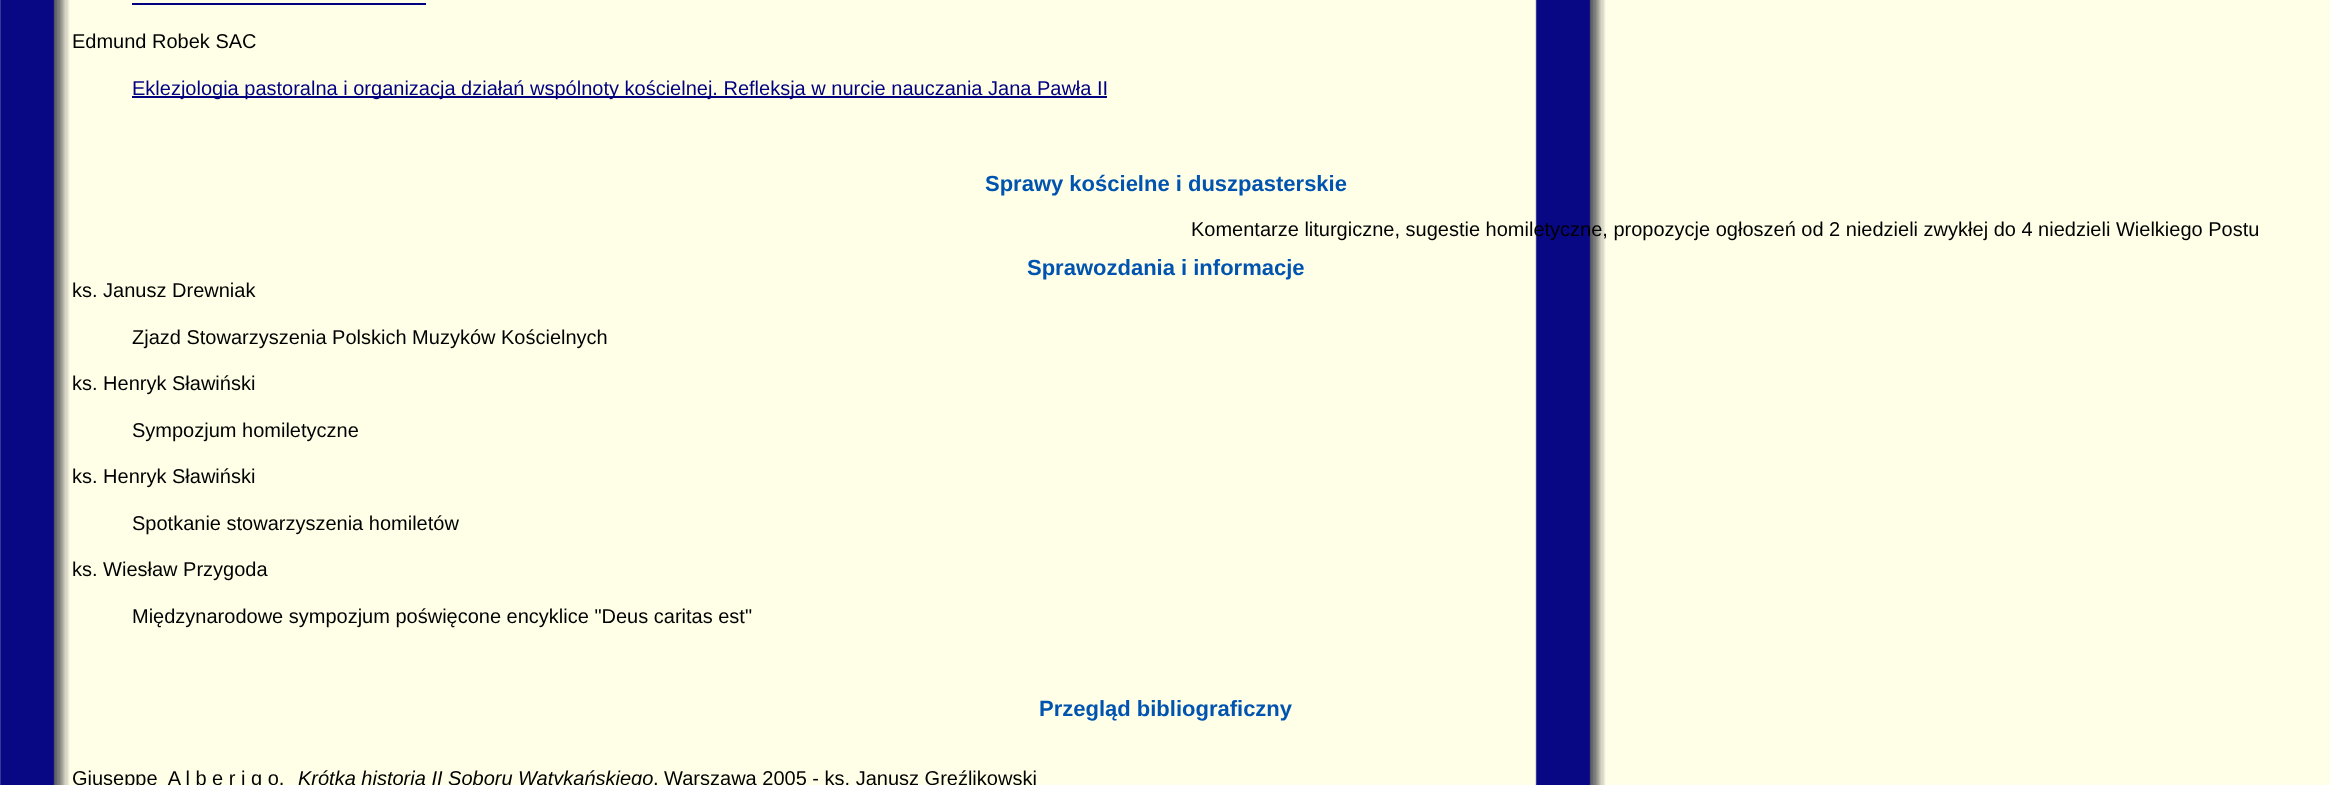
<svg xmlns="http://www.w3.org/2000/svg" width="2330" height="785" viewBox="0 0 2330 785">
  <rect width="100%" height="100%" fill="#ffffff"/>
  <image x="0" y="0" width="2330" height="785" href="img1.png"/>
  <rect x="132" y="3" width="294" height="2" fill="#000080"/>
  <text x="72" y="48" font-family="Liberation Sans" font-size="20" fill="#000000">Edmund Robek SAC</text>
  <rect x="132" y="96" width="975" height="2" fill="#000080"/>
  <text x="132" y="95" font-family="Liberation Sans" font-size="20" fill="#000080">Eklezjologia pastoralna i organizacja działań wspólnoty kościelnej. Refleksja w nurcie nauczania Jana Pawła II</text>
  <text x="985" y="191" font-family="Liberation Sans" font-size="22" font-weight="bold" fill="#0054b0">Sprawy kościelne i duszpasterskie</text>
  <text x="1191" y="236" font-family="Liberation Sans" font-size="20" fill="#000000">Komentarze liturgiczne, sugestie homiletyczne, propozycje ogłoszeń od 2 niedzieli zwykłej do 4 niedzieli Wielkiego Postu</text>
  <text x="1027" y="275" font-family="Liberation Sans" font-size="22" font-weight="bold" fill="#0054b0">Sprawozdania i informacje</text>
  <text x="72" y="297" font-family="Liberation Sans" font-size="20" fill="#000000">ks. Janusz Drewniak</text>
  <text x="132" y="344" font-family="Liberation Sans" font-size="20" fill="#000000">Zjazd Stowarzyszenia Polskich Muzyków Kościelnych</text>
  <text x="72" y="390" font-family="Liberation Sans" font-size="20" fill="#000000">ks. Henryk Sławiński</text>
  <text x="132" y="437" font-family="Liberation Sans" font-size="20" fill="#000000">Sympozjum homiletyczne</text>
  <text x="72" y="483" font-family="Liberation Sans" font-size="20" fill="#000000">ks. Henryk Sławiński</text>
  <text x="132" y="530" font-family="Liberation Sans" font-size="20" fill="#000000">Spotkanie stowarzyszenia homiletów</text>
  <text x="72" y="576" font-family="Liberation Sans" font-size="20" fill="#000000">ks. Wiesław Przygoda</text>
  <text x="132" y="623" font-family="Liberation Sans" font-size="20" fill="#000000">Międzynarodowe sympozjum poświęcone encyklice "Deus caritas est"</text>
  <text x="1039" y="716" font-family="Liberation Sans" font-size="22" font-weight="bold" fill="#0054b0">Przegląd bibliograficzny</text>
  <text x="72" y="785" font-family="Liberation Sans" font-size="20" fill="#000000" xml:space="preserve">Giuseppe  A l b e r i g o,</text>
  <text x="298" y="785" font-family="Liberation Sans" font-size="20" font-style="italic" fill="#000000">Krótka historia II Soboru Watykańskiego</text>
  <text x="653" y="785" font-family="Liberation Sans" font-size="20" fill="#000000">, Warszawa 2005 - ks. Janusz Gręźlikowski</text>
</svg>
